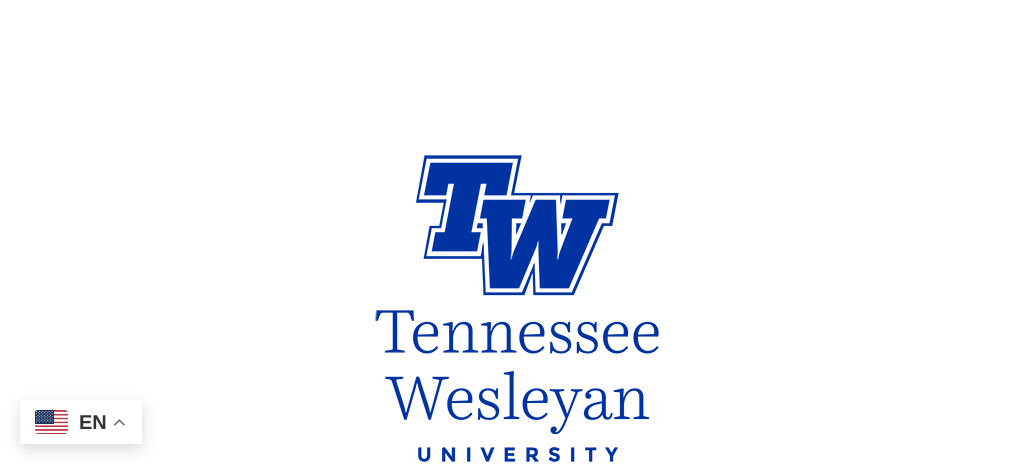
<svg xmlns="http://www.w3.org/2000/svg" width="1035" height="476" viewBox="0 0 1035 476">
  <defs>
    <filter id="blur1" x="-50%" y="-200%" width="200%" height="500%"><feGaussianBlur stdDeviation="7.5"/></filter>
  </defs>
  <rect width="100%" height="100%" fill="#ffffff"/>
  <rect x="20" y="405" width="122" height="44" rx="2" fill="#000000" fill-opacity="0.15" filter="url(#blur1)"/>
  <rect x="20" y="400" width="122" height="44" rx="2" fill="#ffffff"/>
  <image x="35" y="410" width="33" height="24" href="img1.png"/>
  <text x="79" y="429" font-family="Liberation Sans" font-size="20" font-weight="bold" fill="#333333">EN</text>
  <image x="114" y="419" width="11" height="7" href="img2.png"/>
  <image x="375" y="155" width="284" height="307" href="img3.png"/>
</svg>
